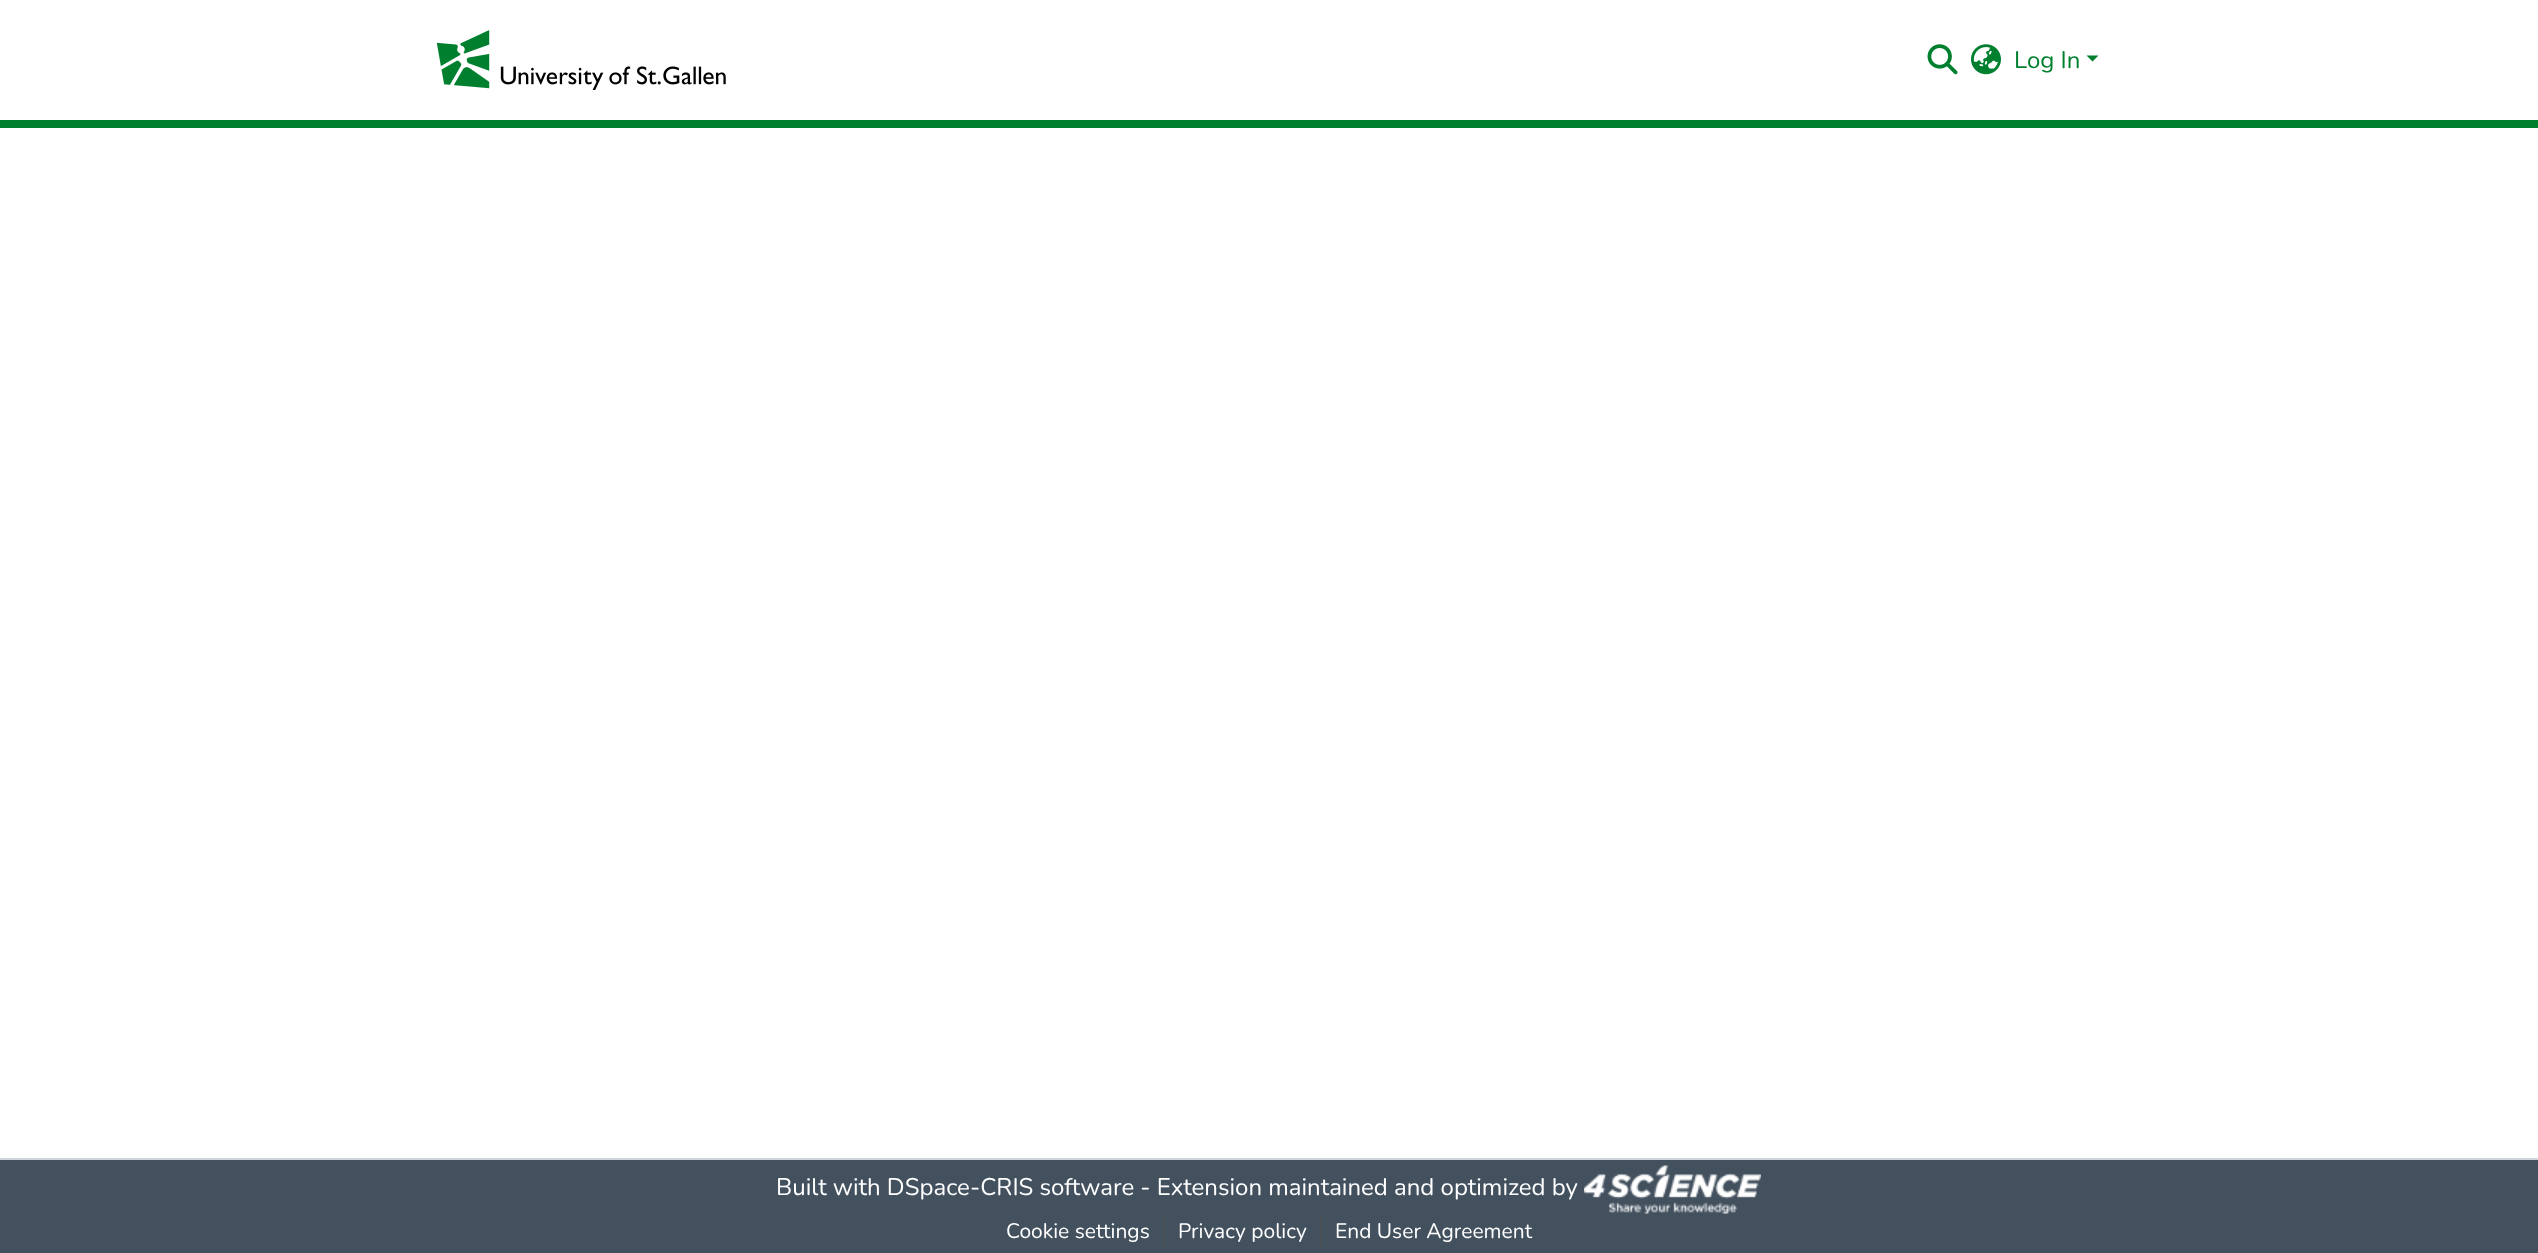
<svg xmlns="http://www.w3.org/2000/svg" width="2538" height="1253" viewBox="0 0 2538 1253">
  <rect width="100%" height="100%" fill="#ffffff"/>
  <rect x="0" y="120" width="2538" height="8" fill="#00802f"/>
  <image x="437" y="30" width="289" height="60" href="img1.png"/>
  <image x="1927" y="44" width="31" height="31" href="img2.png"/>
  <image x="1971" y="44" width="30" height="31" href="img3.png"/>
  <text x="2014" y="68" font-family="Nunito" font-size="24" fill="#00802f">Log In</text>
  <path d="M2086.5 55.5H2098.5L2092.5 61.5Z" fill="#00802f"/>
  <rect x="0" y="1160" width="2538" height="93" fill="#43515f"/>
  <rect x="0" y="1158" width="2538" height="2" fill="#ced4da"/>
  <text x="776" y="1195" font-family="Nunito" font-size="24" fill="#ffffff">Built with DSpace-CRIS software - Extension maintained and optimized by</text>
  <image x="1584" y="1165" width="177" height="49" href="img4.png"/>
  <text x="1006" y="1238" font-family="Nunito" font-size="21" fill="#ffffff">Cookie settings</text>
  <rect x="1163" y="1214" width="2" height="34" fill="#495057"/>
  <text x="1178" y="1238" font-family="Nunito" font-size="21" fill="#ffffff">Privacy policy</text>
  <rect x="1320" y="1214" width="2" height="34" fill="#495057"/>
  <text x="1335" y="1238" font-family="Nunito" font-size="21" fill="#ffffff">End User Agreement</text>
</svg>
